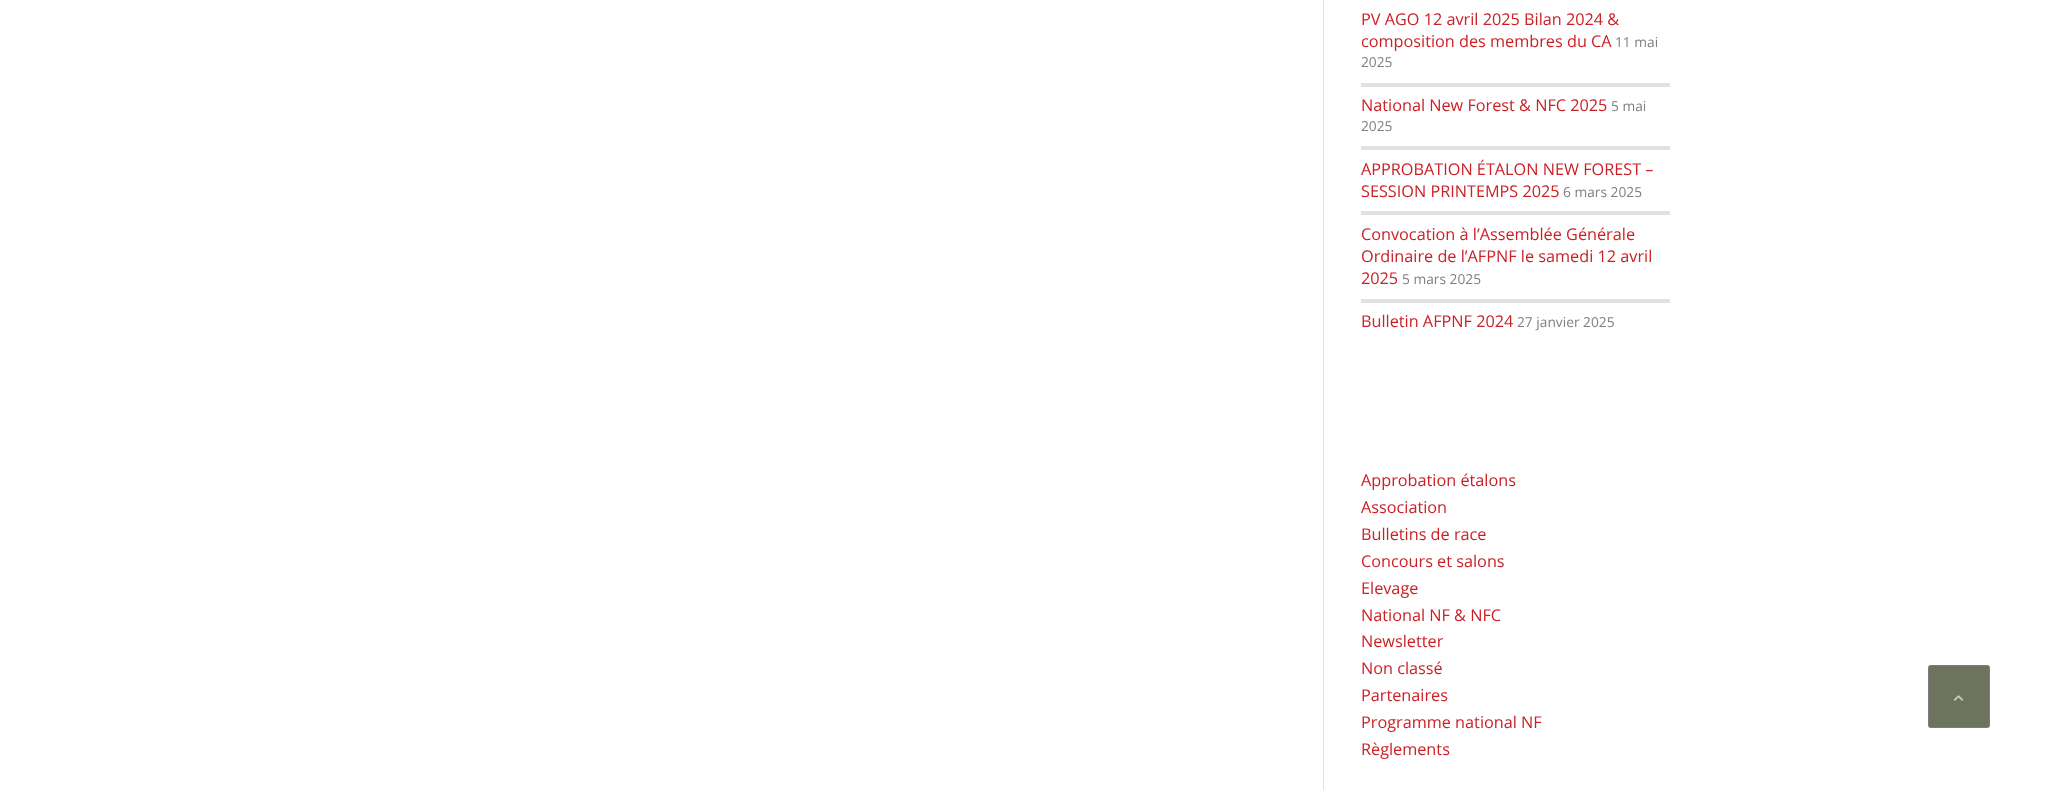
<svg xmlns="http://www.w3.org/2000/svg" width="2052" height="790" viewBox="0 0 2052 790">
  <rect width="100%" height="100%" fill="#ffffff"/>
  <rect x="1323" y="0" width="1" height="790" fill="#e1e1e1"/>
  <text x="1361" y="25" font-family="Open Sans" font-size="16.25" fill="#cb2026">PV AGO 12 avril 2025 Bilan 2024 &amp;</text>
  <text x="1361" y="47" font-family="Open Sans" font-size="16.25" fill="#cb2026">composition des membres du CA</text>
  <text x="1615" y="47" font-family="Open Sans" font-size="13.75" fill="#808080">11 mai</text>
  <text x="1361" y="67" font-family="Open Sans" font-size="13.75" fill="#808080">2025</text>
  <rect x="1361" y="83" width="309" height="4" fill="#e1e1e1"/>
  <text x="1361" y="111" font-family="Open Sans" font-size="16.25" fill="#cb2026">National New Forest &amp; NFC 2025</text>
  <text x="1611" y="111" font-family="Open Sans" font-size="13.75" fill="#808080">5 mai</text>
  <text x="1361" y="131" font-family="Open Sans" font-size="13.75" fill="#808080">2025</text>
  <rect x="1361" y="146" width="309" height="4" fill="#e1e1e1"/>
  <text x="1361" y="175" font-family="Open Sans" font-size="16.25" fill="#cb2026">APPROBATION ÉTALON NEW FOREST –</text>
  <text x="1361" y="197" font-family="Open Sans" font-size="16.25" fill="#cb2026">SESSION PRINTEMPS 2025</text>
  <text x="1563" y="197" font-family="Open Sans" font-size="13.75" fill="#808080">6 mars 2025</text>
  <rect x="1361" y="211" width="309" height="4" fill="#e1e1e1"/>
  <text x="1361" y="240" font-family="Open Sans" font-size="16.25" fill="#cb2026">Convocation à l’Assemblée Générale</text>
  <text x="1361" y="262" font-family="Open Sans" font-size="16.25" fill="#cb2026">Ordinaire de l’AFPNF le samedi 12 avril</text>
  <text x="1361" y="284" font-family="Open Sans" font-size="16.25" fill="#cb2026">2025</text>
  <text x="1402" y="284" font-family="Open Sans" font-size="13.75" fill="#808080">5 mars 2025</text>
  <rect x="1361" y="299" width="309" height="4" fill="#e1e1e1"/>
  <text x="1361" y="327" font-family="Open Sans" font-size="16.25" fill="#cb2026">Bulletin AFPNF 2024</text>
  <text x="1517" y="327" font-family="Open Sans" font-size="13.75" fill="#808080">27 janvier 2025</text>
  <text x="1361" y="486" font-family="Open Sans" font-size="16.25" fill="#cb2026">Approbation étalons</text>
  <text x="1361" y="513" font-family="Open Sans" font-size="16.25" fill="#cb2026">Association</text>
  <text x="1361" y="540" font-family="Open Sans" font-size="16.25" fill="#cb2026">Bulletins de race</text>
  <text x="1361" y="567" font-family="Open Sans" font-size="16.25" fill="#cb2026">Concours et salons</text>
  <text x="1361" y="594" font-family="Open Sans" font-size="16.25" fill="#cb2026">Elevage</text>
  <text x="1361" y="621" font-family="Open Sans" font-size="16.25" fill="#cb2026">National NF &amp; NFC</text>
  <text x="1361" y="647" font-family="Open Sans" font-size="16.25" fill="#cb2026">Newsletter</text>
  <text x="1361" y="674" font-family="Open Sans" font-size="16.25" fill="#cb2026">Non classé</text>
  <text x="1361" y="701" font-family="Open Sans" font-size="16.25" fill="#cb2026">Partenaires</text>
  <text x="1361" y="728" font-family="Open Sans" font-size="16.25" fill="#cb2026">Programme national NF</text>
  <text x="1361" y="755" font-family="Open Sans" font-size="16.25" fill="#cb2026">Règlements</text>
  <rect x="1928.5" y="665.5" width="61" height="62" rx="2" fill="#6c745d" stroke="#7c7c7c"/>
  <image x="1953" y="695" width="11" height="6" href="img1.png"/>
</svg>
